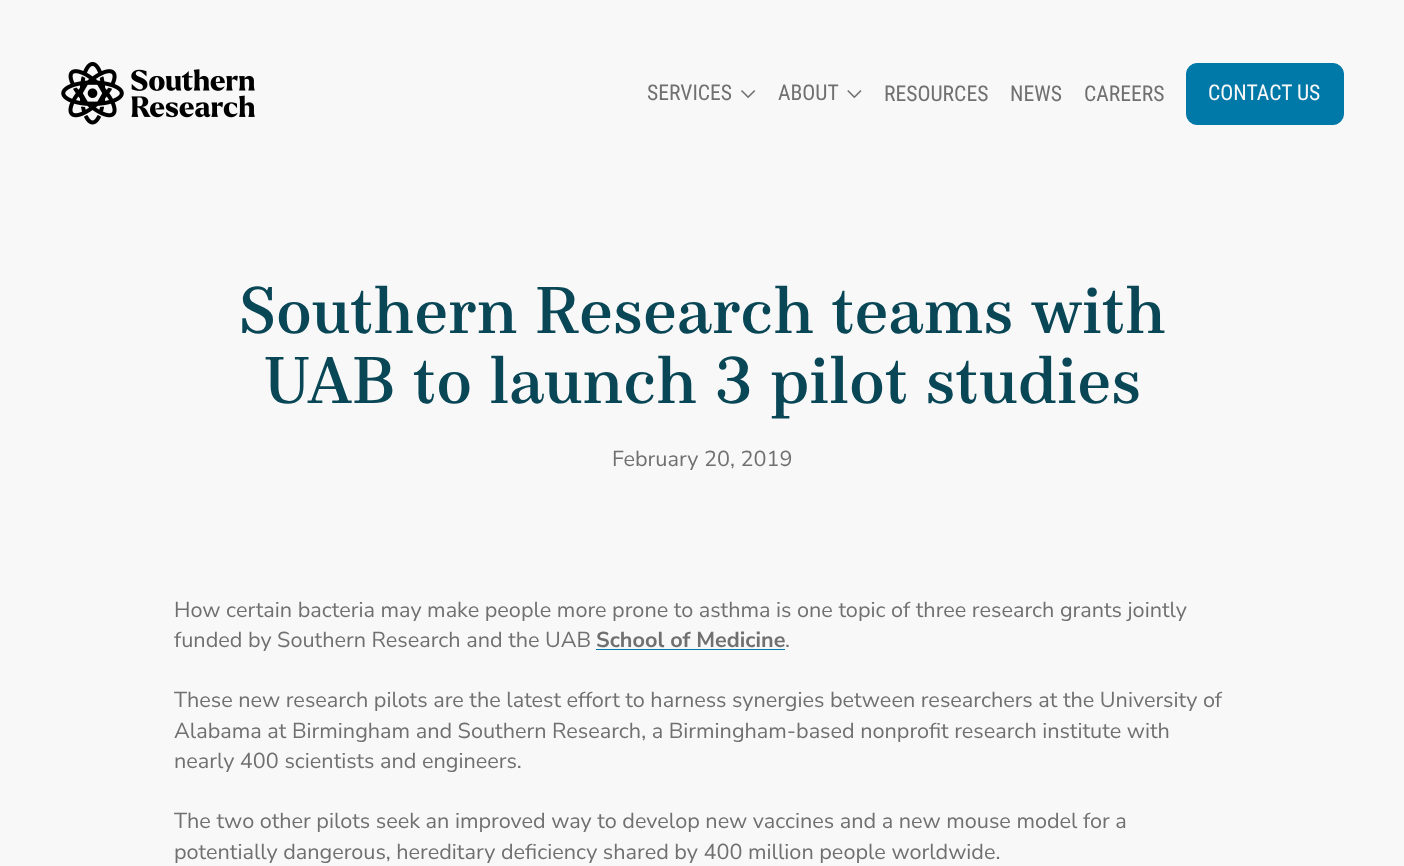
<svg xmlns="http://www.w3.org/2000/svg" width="1404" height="866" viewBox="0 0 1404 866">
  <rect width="100%" height="100%" fill="#f8f8f8"/>
  <image x="61" y="62" width="194" height="63" href="img1.png"/>
  <text x="647" y="100" font-family="Roboto Condensed" font-size="21.65" fill="#707070">SERVICES</text>
  <image x="741" y="90" width="15" height="9" href="img2.png"/>
  <text x="778" y="100" font-family="Roboto Condensed" font-size="21.65" fill="#707070">ABOUT</text>
  <image x="847" y="90" width="15" height="9" href="img3.png"/>
  <text x="884" y="101" font-family="Roboto Condensed" font-size="21.65" fill="#707070">RESOURCES</text>
  <text x="1010" y="101" font-family="Roboto Condensed" font-size="21.65" fill="#707070">NEWS</text>
  <text x="1084" y="101" font-family="Roboto Condensed" font-size="21.65" fill="#707070">CAREERS</text>
  <rect x="1186.5" y="63.5" width="157" height="61" rx="10.5" fill="#0078a8" stroke="#0078a8"/>
  <text x="1208" y="100" font-family="Roboto Condensed" font-size="21.65" fill="#f8f8f8">CONTACT US</text>
  <text x="239" y="333" font-family="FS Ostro" font-size="67.5" font-weight="500" fill="#094656">Southern Research teams with</text>
  <text x="264" y="403" font-family="FS Ostro" font-size="67.5" font-weight="500" fill="#094656">UAB to launch 3 pilot studies</text>
  <text x="612" y="466" font-family="Nunito Sans" font-size="21.65" font-weight="200" fill="#707070">February 20, 2019</text>
  <text x="174" y="617" font-family="Nunito Sans" font-size="21.65" font-weight="200" fill="#707070">How certain bacteria may make people more prone to asthma is one topic of three research grants jointly</text>
  <text x="174" y="647" font-family="Nunito Sans" font-size="21.65" font-weight="200" fill="#707070">funded by Southern Research and the UAB</text>
  <text x="596" y="647" font-family="'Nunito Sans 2'" font-size="21.65" font-weight="200" fill="#707070">School of Medicine</text>
  <rect x="596" y="649" width="189" height="1" fill="#0078a8"/>
  <text x="785" y="647" font-family="Nunito Sans" font-size="21.65" font-weight="200" fill="#707070">.</text>
  <text x="174" y="707" font-family="Nunito Sans" font-size="21.65" font-weight="200" fill="#707070">These new research pilots are the latest effort to harness synergies between researchers at the University of</text>
  <text x="174" y="738" font-family="Nunito Sans" font-size="21.65" font-weight="200" fill="#707070">Alabama at Birmingham and Southern Research, a Birmingham-based nonprofit research institute with</text>
  <text x="174" y="768" font-family="Nunito Sans" font-size="21.65" font-weight="200" fill="#707070">nearly 400 scientists and engineers.</text>
  <text x="174" y="828" font-family="Nunito Sans" font-size="21.65" font-weight="200" fill="#707070">The two other pilots seek an improved way to develop new vaccines and a new mouse model for a</text>
  <text x="174" y="859" font-family="Nunito Sans" font-size="21.65" font-weight="200" fill="#707070">potentially dangerous, hereditary deficiency shared by 400 million people worldwide.</text>
</svg>
